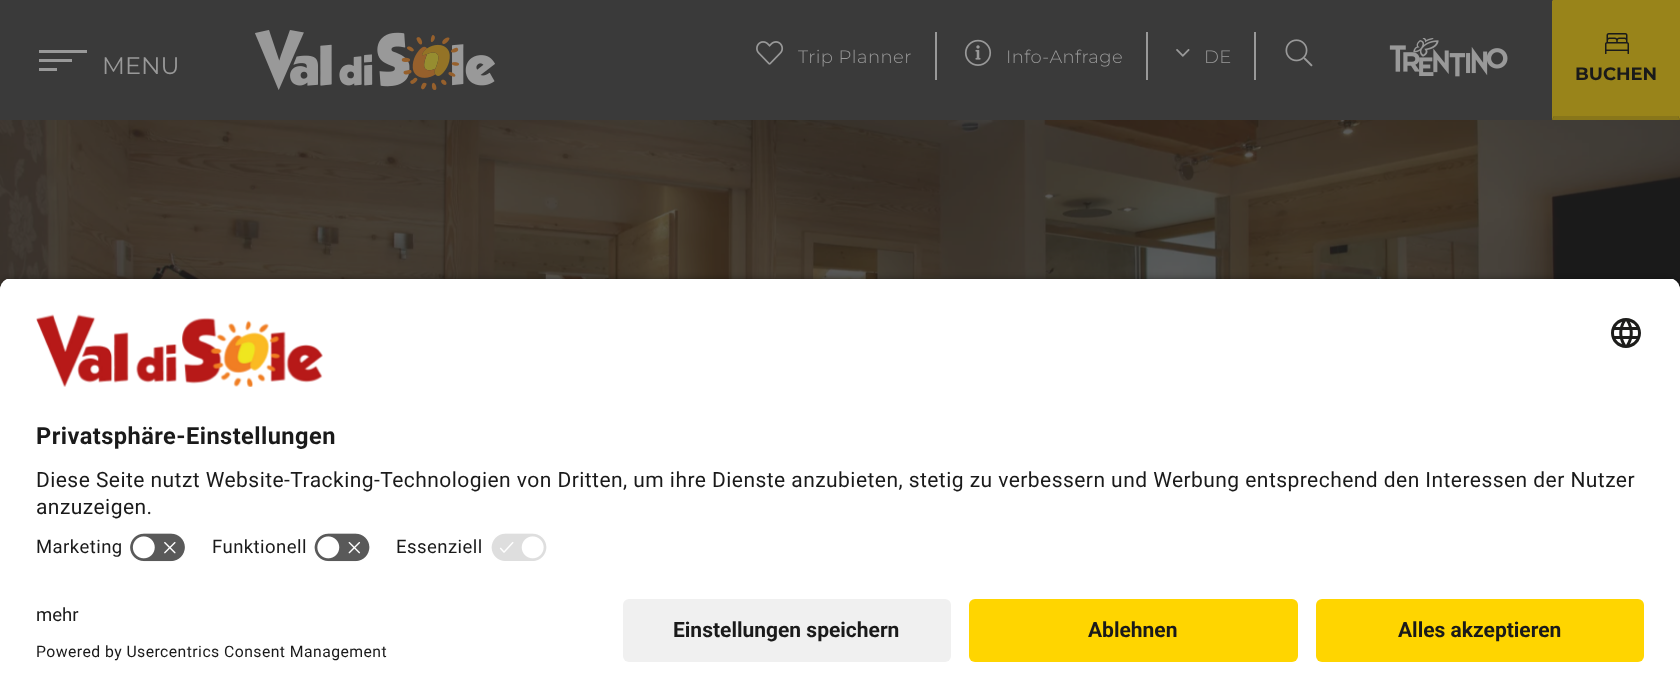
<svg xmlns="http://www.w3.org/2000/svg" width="1680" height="697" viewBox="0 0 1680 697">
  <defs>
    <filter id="blur1" x="-50%" y="-200%" width="200%" height="500%"><feGaussianBlur stdDeviation="5"/></filter>
    <clipPath id="clip1"><path d="M12 278H1668C1674.5 278 1680 283.5 1680 290V587H0V290C0 283.5 5.5 278 12 278Z"/></clipPath>
  </defs>
  <rect width="100%" height="100%" fill="#ffffff"/>
  <rect x="0" y="0" width="1680" height="120" fill="#3a3a3a"/>
  <rect x="39" y="59" width="33" height="3" fill="#999999"/>
  <rect x="39" y="50" width="48" height="3" fill="#999999"/>
  <rect x="39" y="68" width="18" height="3" fill="#999999"/>
  <text x="102" y="74" font-family="Montserrat" font-size="24" fill="#999999">MENU</text>
  <image x="255" y="30" width="240" height="60" href="img1.png"/>
  <rect x="935" y="32" width="2" height="48" fill="#999999"/>
  <image x="756" y="41" width="28" height="24" href="img2.png"/>
  <text x="798" y="63" font-family="Montserrat" font-size="18" font-weight="300" letter-spacing="0.45" fill="#999999">Trip Planner</text>
  <rect x="1146" y="32" width="2" height="48" fill="#999999"/>
  <image x="964" y="39" width="28" height="27" href="img3.png"/>
  <text x="1006" y="63" font-family="Montserrat" font-size="18" font-weight="300" letter-spacing="0.45" fill="#999999">Info-Anfrage</text>
  <rect x="1254" y="32" width="2" height="48" fill="#999999"/>
  <image x="1176" y="49" width="14" height="8" href="img4.png"/>
  <text x="1204" y="63" font-family="Montserrat" font-size="18" font-weight="300" letter-spacing="0.45" fill="#999999">DE</text>
  <image x="1285" y="39" width="28" height="28" href="img5.png"/>
  <image x="1389" y="38" width="119" height="39" href="img6.png"/>
  <rect x="1554" y="2" width="124" height="114" fill="#99841a"/>
  <rect x="1553" y="0" width="127" height="2" fill="#99841a"/>
  <path d="M1680 0V120L1678 116V2Z" fill="#99841a"/>
  <path d="M1680 120H1552L1554 116H1678Z" fill="#88761a"/>
  <path d="M1552 120V0L1554 2V116Z" fill="#99841a"/>
  <image x="1605" y="33" width="24" height="21" href="img7.png"/>
  <text x="1575" y="80" font-family="Montserrat" font-size="18" font-weight="bold" fill="#1a1a1a">BUCHEN</text>
  <image x="0" y="120" width="1680" height="170" href="img8.png"/>
  <rect x="0" y="282" width="1680" height="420" rx="12" fill="#000000" fill-opacity="0.8" filter="url(#blur1)"/>
  <g clip-path="url(#clip1)">
    <rect x="0" y="279" width="1680" height="308" fill="#ffffff"/>
    <rect x="0" y="279" width="1680" height="248" fill="#ffffff"/>
  </g>
  <image x="36" y="314" width="287" height="73" href="img9.png"/>
  <image x="1611" y="318" width="30" height="30" href="img10.png"/>
  <text x="36" y="444" font-family="Roboto" font-size="23.6" font-weight="bold" letter-spacing="0.45" fill="#1a1a1a">Privatsphäre-Einstellungen</text>
  <text x="36" y="487" font-family="Roboto" font-size="21" letter-spacing="0.45" fill="#1a1a1a">Diese Seite nutzt Website-Tracking-Technologien von Dritten, um ihre Dienste anzubieten, stetig zu verbessern und Werbung entsprechend den Interessen der Nutzer</text>
  <text x="36" y="514" font-family="Roboto" font-size="21" letter-spacing="0.45" fill="#1a1a1a">anzuzeigen.</text>
  <text x="36" y="553" font-family="Roboto" font-size="18.5" letter-spacing="0.45" fill="#1a1a1a">Marketing</text>
  <image x="130" y="533" width="55" height="29" href="img11.png"/>
  <text x="212" y="553" font-family="Roboto" font-size="18.5" letter-spacing="0.45" fill="#1a1a1a">Funktionell</text>
  <image x="314" y="533" width="56" height="29" href="img12.png"/>
  <text x="396" y="553" font-family="Roboto" font-size="18.5" letter-spacing="0.45" fill="#1a1a1a">Essenziell</text>
  <image x="491" y="533" width="56" height="28" href="img13.png"/>
  <rect x="0" y="587" width="1680" height="110" fill="#ffffff"/>
  <text x="36" y="621" font-family="Roboto" font-size="18.5" fill="#1a1a1a">mehr</text>
  <text x="36" y="657" font-family="Roboto" font-size="15.75" letter-spacing="0.45" fill="#1a1a1a">Powered by Usercentrics Consent Management</text>
  <rect x="623" y="599" width="328" height="63" rx="6" fill="#f0f0f0"/>
  <text x="673" y="637" font-family="Roboto" font-size="21" font-weight="bold" fill="#1a1a1a">Einstellungen speichern</text>
  <rect x="969" y="599" width="329" height="63" rx="6" fill="#ffd500"/>
  <text x="1088" y="637" font-family="Roboto" font-size="21" font-weight="bold" fill="#1a1a1a">Ablehnen</text>
  <rect x="1316" y="599" width="328" height="63" rx="6" fill="#ffd500"/>
  <text x="1398" y="637" font-family="Roboto" font-size="21" font-weight="bold" fill="#1a1a1a">Alles akzeptieren</text>
</svg>
